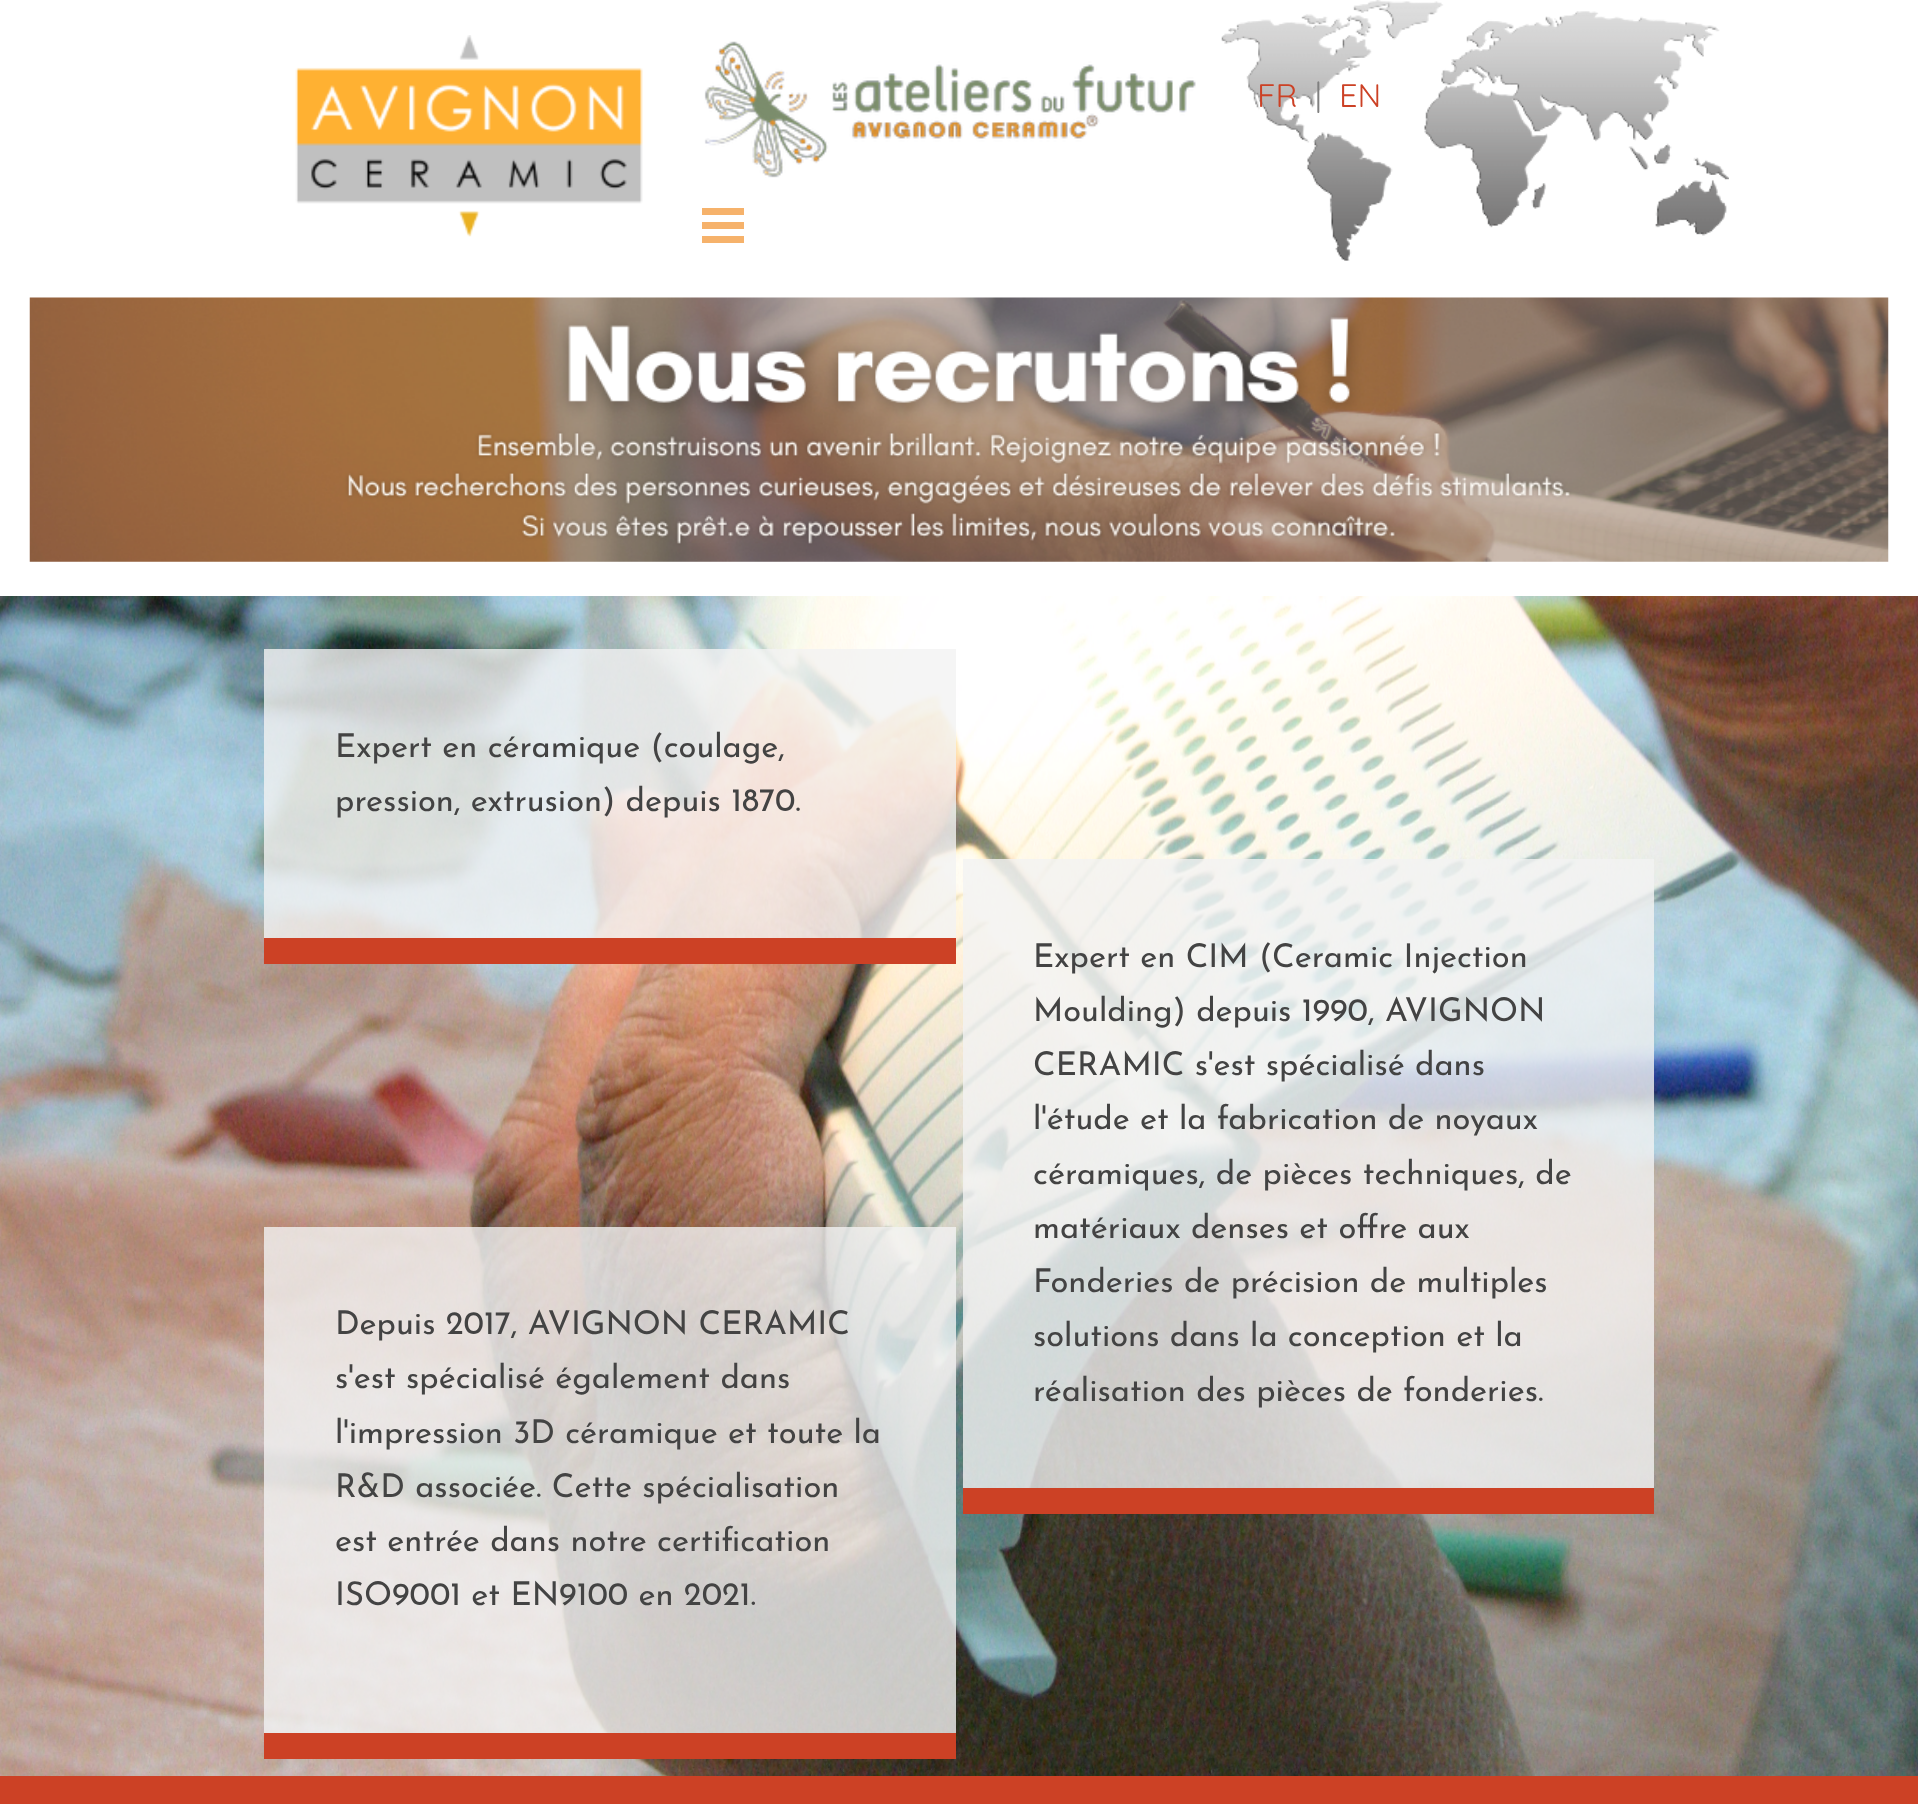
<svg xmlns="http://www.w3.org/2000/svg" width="1918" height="1804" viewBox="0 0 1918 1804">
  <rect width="100%" height="100%" fill="#ffffff"/>
  <image x="295" y="35" width="348" height="202" href="img1.png"/>
  <image x="704" y="41" width="492" height="137" href="img2.png"/>
  <image x="1221" y="0" width="508" height="261" href="img3.png"/>
  <text x="1257" y="107" font-family="Quicksand" font-size="32.7" fill="#cc4125">FR</text>
  <text x="1315" y="107" font-family="Quicksand" font-size="32.7" fill="#808080">|</text>
  <text x="1339" y="107" font-family="Quicksand" font-size="32.7" fill="#cc4125">EN</text>
  <rect x="702" y="208" width="42" height="7" fill="#f6b26b"/>
  <rect x="702" y="222" width="42" height="7" fill="#f6b26b"/>
  <rect x="702" y="236" width="42" height="7" fill="#f6b26b"/>
  <image x="29" y="297" width="1860" height="265" href="img4.png"/>
  <image x="0" y="596" width="1918" height="1180" href="img5.png"/>
  <rect x="264" y="649" width="692" height="289" fill="#f3f3f3" fill-opacity="0.8"/>
  <text x="335" y="757" font-family="Josefin Sans" font-size="32.7" fill="#434343">Expert en céramique (coulage,</text>
  <text x="335" y="811" font-family="Josefin Sans" font-size="32.7" fill="#434343">pression, extrusion) depuis 1870.</text>
  <rect x="264" y="938" width="692" height="26" fill="#cc4125"/>
  <rect x="963" y="859" width="691" height="629" fill="#f3f3f3" fill-opacity="0.8"/>
  <text x="1033" y="967" font-family="Josefin Sans" font-size="32.7" fill="#434343">Expert en CIM (Ceramic Injection</text>
  <text x="1033" y="1021" font-family="Josefin Sans" font-size="32.7" fill="#434343">Moulding) depuis 1990, AVIGNON</text>
  <text x="1033" y="1075" font-family="Josefin Sans" font-size="32.7" fill="#434343">CERAMIC s'est spécialisé dans</text>
  <text x="1033" y="1129" font-family="Josefin Sans" font-size="32.7" fill="#434343">l'étude et la fabrication de noyaux</text>
  <text x="1033" y="1184" font-family="Josefin Sans" font-size="32.7" fill="#434343">céramiques, de pièces techniques, de</text>
  <text x="1033" y="1238" font-family="Josefin Sans" font-size="32.7" fill="#434343">matériaux denses et offre aux</text>
  <text x="1033" y="1292" font-family="Josefin Sans" font-size="32.7" fill="#434343">Fonderies de précision de multiples</text>
  <text x="1033" y="1346" font-family="Josefin Sans" font-size="32.7" fill="#434343">solutions dans la conception et la</text>
  <text x="1033" y="1401" font-family="Josefin Sans" font-size="32.7" fill="#434343">réalisation des pièces de fonderies.</text>
  <rect x="963" y="1488" width="691" height="26" fill="#cc4125"/>
  <rect x="264" y="1227" width="692" height="506" fill="#f3f3f3" fill-opacity="0.8"/>
  <text x="335" y="1334" font-family="Josefin Sans" font-size="32.7" fill="#434343">Depuis 2017, AVIGNON CERAMIC</text>
  <text x="335" y="1388" font-family="Josefin Sans" font-size="32.7" fill="#434343">s'est spécialisé également dans</text>
  <text x="335" y="1443" font-family="Josefin Sans" font-size="32.7" fill="#434343">l'impression 3D céramique et toute la</text>
  <text x="335" y="1497" font-family="Josefin Sans" font-size="32.7" fill="#434343">R&amp;D associée. Cette spécialisation</text>
  <text x="335" y="1551" font-family="Josefin Sans" font-size="32.7" fill="#434343">est entrée dans notre certification</text>
  <text x="335" y="1605" font-family="Josefin Sans" font-size="32.7" fill="#434343">ISO9001 et EN9100 en 2021.</text>
  <rect x="264" y="1733" width="692" height="26" fill="#cc4125"/>
  <rect x="0" y="1776" width="1918" height="28" fill="#cc4125"/>
</svg>
